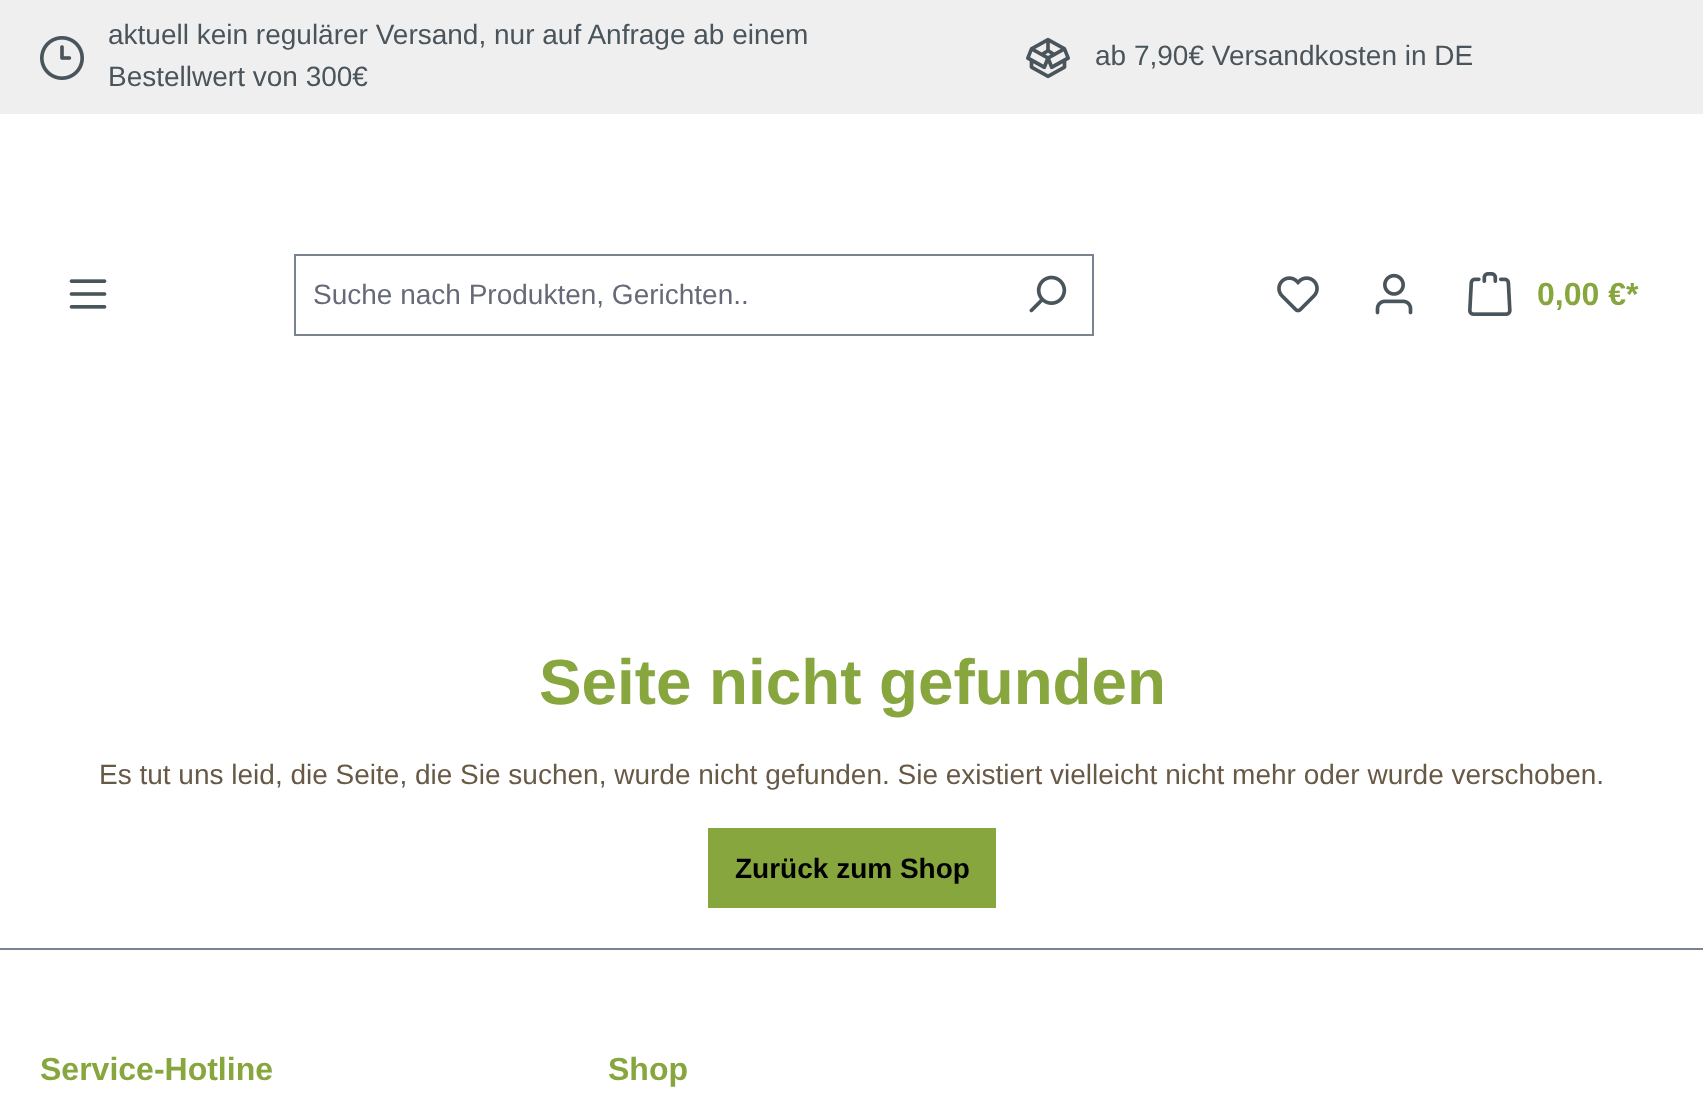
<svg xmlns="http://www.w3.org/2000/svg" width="1703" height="1118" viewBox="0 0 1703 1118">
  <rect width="100%" height="100%" fill="#ffffff"/>
  <rect x="0" y="0" width="1703" height="114" fill="#efefef"/>
  <image x="40" y="36" width="44" height="44" href="img1.png"/>
  <text x="108" y="44" font-family="Liberation Sans" font-size="28" fill="#4a545b">aktuell kein regulärer Versand, nur auf Anfrage ab einem</text>
  <text x="108" y="86" font-family="Liberation Sans" font-size="28" fill="#4a545b">Bestellwert von 300€</text>
  <image x="1026" y="37" width="44" height="42" href="img2.png"/>
  <text x="1095" y="65" font-family="Liberation Sans" font-size="28" fill="#4a545b">ab 7,90€ Versandkosten in DE</text>
  <image x="69" y="279" width="38" height="30" href="img3.png"/>
  <rect x="294" y="254" width="800" height="2" fill="#798490"/>
  <rect x="294" y="334" width="708" height="2" fill="#798490"/>
  <rect x="294" y="254" width="2" height="82" fill="#798490"/>
  <text x="313" y="304" font-family="Liberation Sans" font-size="28" fill="#666977">Suche nach Produkten, Gerichten..</text>
  <rect x="1092" y="254" width="2" height="82" fill="#798490"/>
  <rect x="1000" y="334" width="94" height="2" fill="#798490"/>
  <image x="1029" y="275" width="38" height="38" href="img4.png"/>
  <image x="1277" y="276" width="42" height="37" href="img5.png"/>
  <image x="1375" y="273" width="38" height="42" href="img6.png"/>
  <image x="1468" y="272" width="44" height="44" href="img7.png"/>
  <text x="1537" y="305" font-family="Liberation Sans" font-size="32" font-weight="bold" fill="#87a63e">0,00 €*</text>
  <text x="539" y="704" font-family="Liberation Sans" font-size="63.75" font-weight="bold" fill="#87a63e">Seite nicht gefunden</text>
  <text x="99" y="784" font-family="Liberation Sans" font-size="28" fill="#685946">Es tut uns leid, die Seite, die Sie suchen, wurde nicht gefunden. Sie existiert vielleicht nicht mehr oder wurde verschoben.</text>
  <rect x="708" y="828" width="288" height="80" fill="#87a63e"/>
  <text x="735" y="878" font-family="Liberation Sans" font-size="28" font-weight="bold" fill="#000000">Zurück zum Shop</text>
  <rect x="0" y="948" width="1703" height="2" fill="#798490"/>
  <text x="40" y="1080" font-family="Liberation Sans" font-size="32" font-weight="bold" fill="#87a63e">Service-Hotline</text>
  <text x="608" y="1080" font-family="Liberation Sans" font-size="32" font-weight="bold" fill="#87a63e">Shop</text>
</svg>
